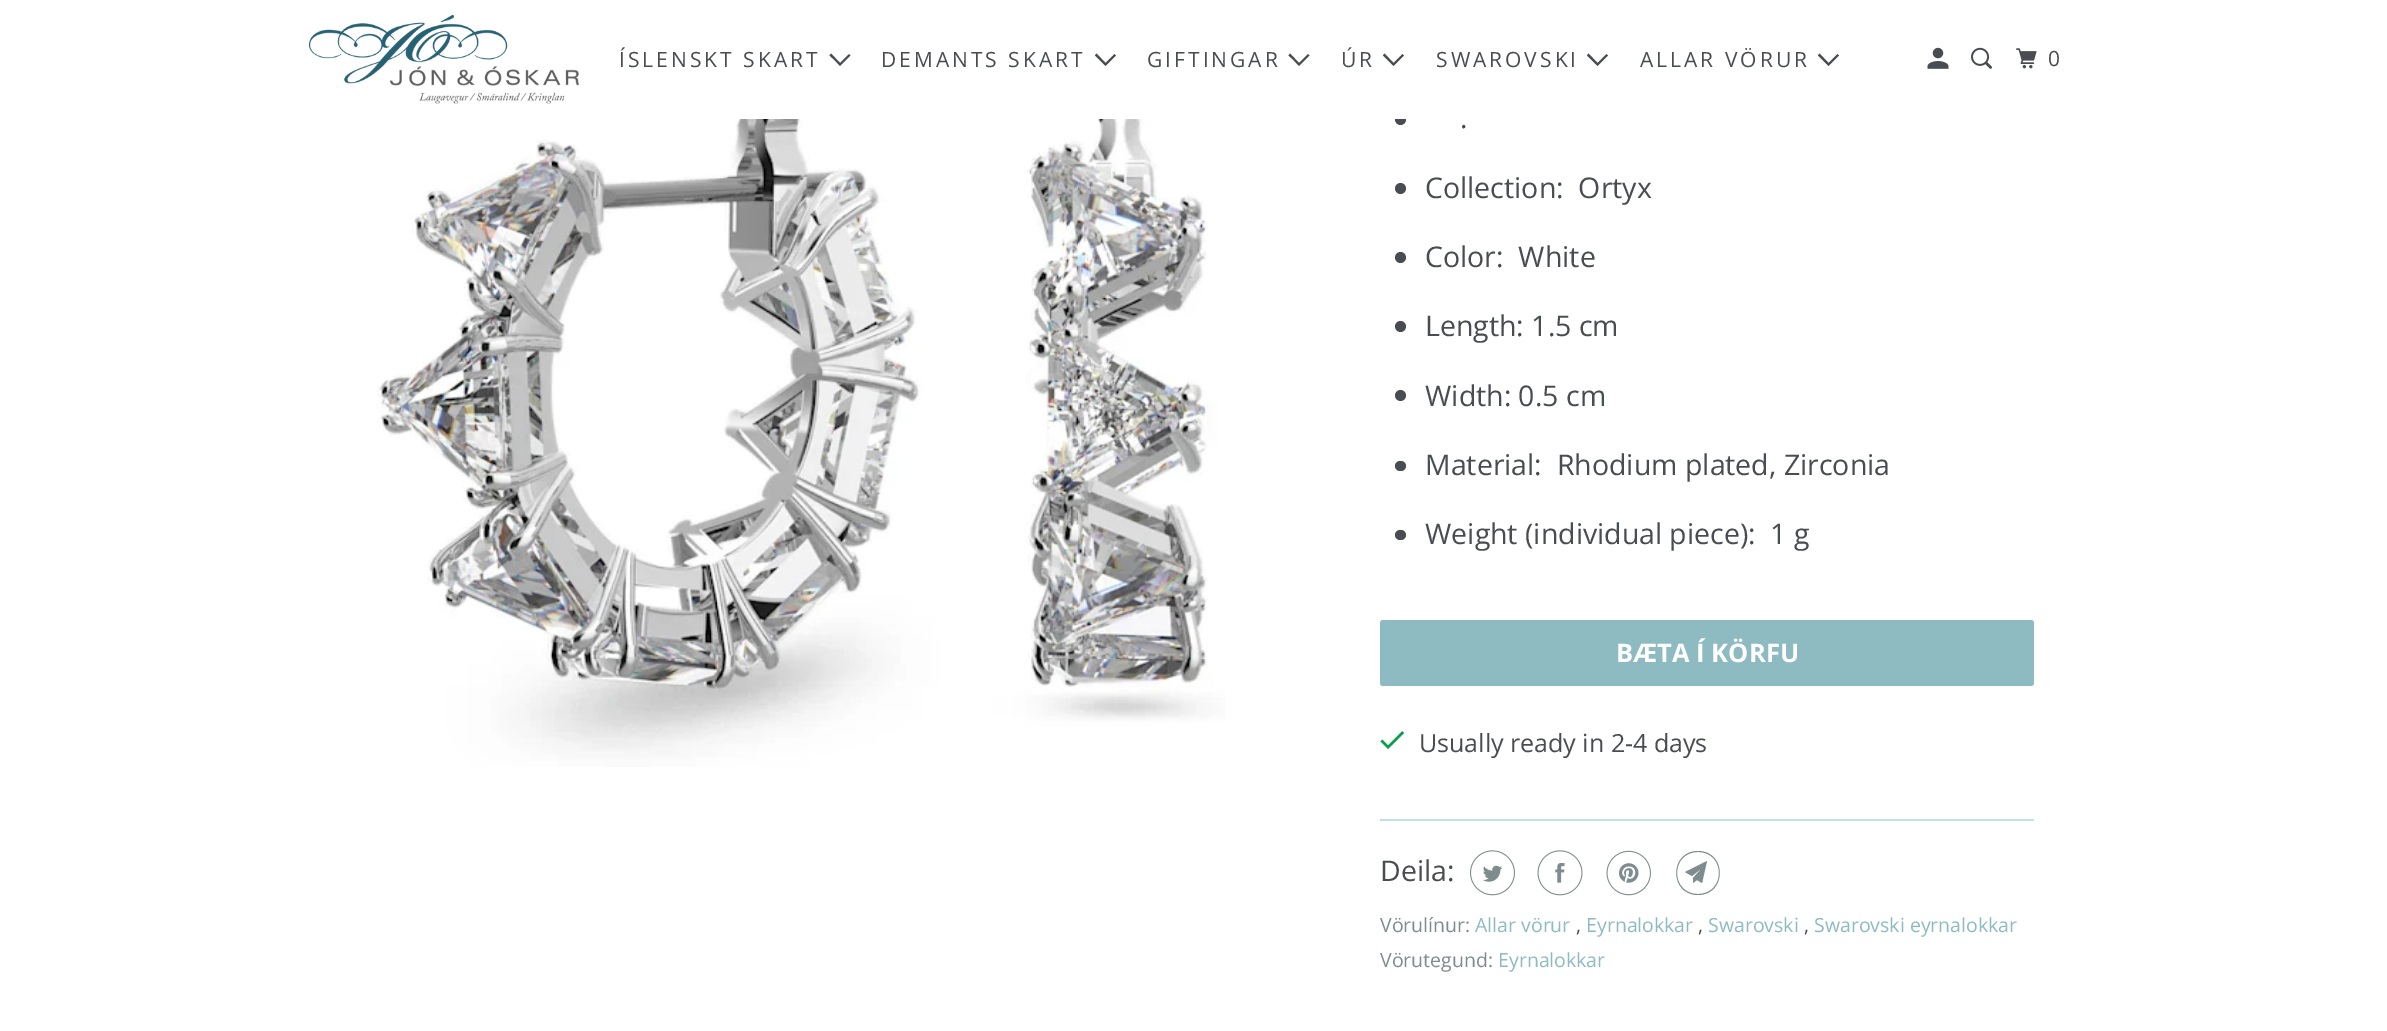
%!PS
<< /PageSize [2387 1031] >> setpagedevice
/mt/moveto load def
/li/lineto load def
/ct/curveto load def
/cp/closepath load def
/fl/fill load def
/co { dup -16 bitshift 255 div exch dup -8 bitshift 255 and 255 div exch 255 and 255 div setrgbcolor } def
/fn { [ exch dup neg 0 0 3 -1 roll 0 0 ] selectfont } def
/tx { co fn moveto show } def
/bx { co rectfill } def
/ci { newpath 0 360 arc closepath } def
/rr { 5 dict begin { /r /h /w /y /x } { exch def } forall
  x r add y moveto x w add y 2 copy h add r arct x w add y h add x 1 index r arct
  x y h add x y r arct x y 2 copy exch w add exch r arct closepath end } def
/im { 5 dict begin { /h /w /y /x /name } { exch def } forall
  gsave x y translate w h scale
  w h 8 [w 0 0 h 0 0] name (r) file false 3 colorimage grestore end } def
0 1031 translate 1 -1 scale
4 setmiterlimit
0 0 2387 1031 16#FFFFFF bx
16#494C50 co
1400.5 119.5 5.5 ci fl
1395 114 11 5 16#FFFFFF bx
(media/1.raw) 309 15 270 89 im
16#494C50 co
835 60.5 mt 829.5 55.5 li 831 53.5 li 840 63 li 849 54 li 850.5 55.5 li 840 66 li cp fl
1100 60.5 mt 1095 55.5 li 1096.5 53.5 li 1105.5 63 li 1114.5 54 li 1116 55.5 li 1105.5 66 li cp fl
1294 60.5 mt 1288.5 55.5 li 1290 53.5 li 1299 63 li 1308 54 li 1309.5 55.5 li 1299 66 li cp fl
1388 60.5 mt 1383 55.5 li 1384.5 53.5 li 1393.5 63 li 1402.5 54 li 1404 55.5 li 1393.5 66 li cp fl
1592 60.5 mt 1587 55.5 li 1588.5 53.5 li 1597.5 63 li 1606.5 54 li 1608 55.5 li 1597.5 66 li cp fl
1823 60.5 mt 1818 55.5 li 1819.5 53.5 li 1828.5 63 li 1837.5 54 li 1839 55.5 li 1828.5 66 li cp fl
(media/2.raw) 1927 47 22 22 im
(media/3.raw) 1971 47 21 22 im
(media/4.raw) 2016 48 21 21 im
(media/5.raw) 377 119 848 648 im
1400.5 188.5 5.5 ci fl
1400.5 257.5 5.5 ci fl
1400.5 326.5 5.5 ci fl
1400.5 395.5 5.5 ci fl
1395 461 11 10 5 rr fl
1395 530 11 10 5 rr fl
16#8EBAC2 co
1380 620 654 66 3 rr fl
(media/6.raw) 1380 731 24 18 im
1380 819 654 2 16#C2E1E6 bx
(media/7.raw) 1470 850 45 46 im
(media/8.raw) 1537 850 46 46 im
(media/9.raw) 1606 850 45 46 im
16#7F8C8D co
1702 883 mt 1697 880 li 1693 883 li 1693 878 li 1702 868 li 1692 876 li 1685 872 li 1707 861 li cp 1698 852 mt 1670 852 1670 894 1698 894 ct 1726 894 1726 852 1698 852 ct cp 1698 895 mt 1669 895 1669 851 1698 851 ct 1727 851 1727 895 1698 895 ct cp fl
/OpenSans-Regular 21 fn
16#494C50 co
619 67 mt 3 0 (ÍSLENSKT SKART) ashow
881 67 mt 3 0 (DEMANTS SKART) ashow
1147 67 mt 3 0 (GIFTINGAR) ashow
1341 67 mt 3 0 (ÚR) ashow
1436 67 mt 3 0 (SWAROVSKI) ashow
1640 67 mt 3 0 (ALLAR VÖRUR) ashow
2048 66 mt 3 0 (0) ashow
(.) 1460 128 /OpenSans-Regular 28.5 16#494C50 tx
(Collection:  Ortyx) 1425 198 /OpenSans-Regular 28.5 16#494C50 tx
(Color:  White) 1425 267 /OpenSans-Regular 28.5 16#494C50 tx
(Length: 1.5 cm) 1425 336 /OpenSans-Regular 28.5 16#494C50 tx
(Width: 0.5 cm) 1425 406 /OpenSans-Regular 28.5 16#494C50 tx
(Material:  Rhodium plated, Zirconia) 1425 475 /OpenSans-Regular 28.5 16#494C50 tx
(Weight \(individual piece\):  1 g) 1425 544 /OpenSans-Regular 28.5 16#494C50 tx
(BÆTA Í KÖRFU) 1616 662 /OpenSans-Bold 25.5 16#FFFFFF tx
(Usually ready in 2-4 days) 1419 752 /OpenSans-Regular 25 16#494C50 tx
(Deila:) 1380 881 /OpenSans-Regular 28.5 16#494C50 tx
(Vörulínur:) 1380 932 /OpenSans-Regular 19.5 16#7F8C8D tx
(Allar vörur) 1475 932 /OpenSans-Regular 19.5 16#8EBAC2 tx
(,) 1576 932 /OpenSans-Regular 19.5 16#494C50 tx
(Eyrnalokkar) 1586 932 /OpenSans-Regular 19.5 16#8EBAC2 tx
(,) 1698 932 /OpenSans-Regular 19.5 16#494C50 tx
(Swarovski) 1708 932 /OpenSans-Regular 19.5 16#8EBAC2 tx
(,) 1804 932 /OpenSans-Regular 19.5 16#494C50 tx
(Swarovski eyrnalokkar) 1814 932 /OpenSans-Regular 19.5 16#8EBAC2 tx
(Vörutegund:) 1380 967 /OpenSans-Regular 19.5 16#7F8C8D tx
(Eyrnalokkar) 1498 967 /OpenSans-Regular 19.5 16#8EBAC2 tx
showpage
